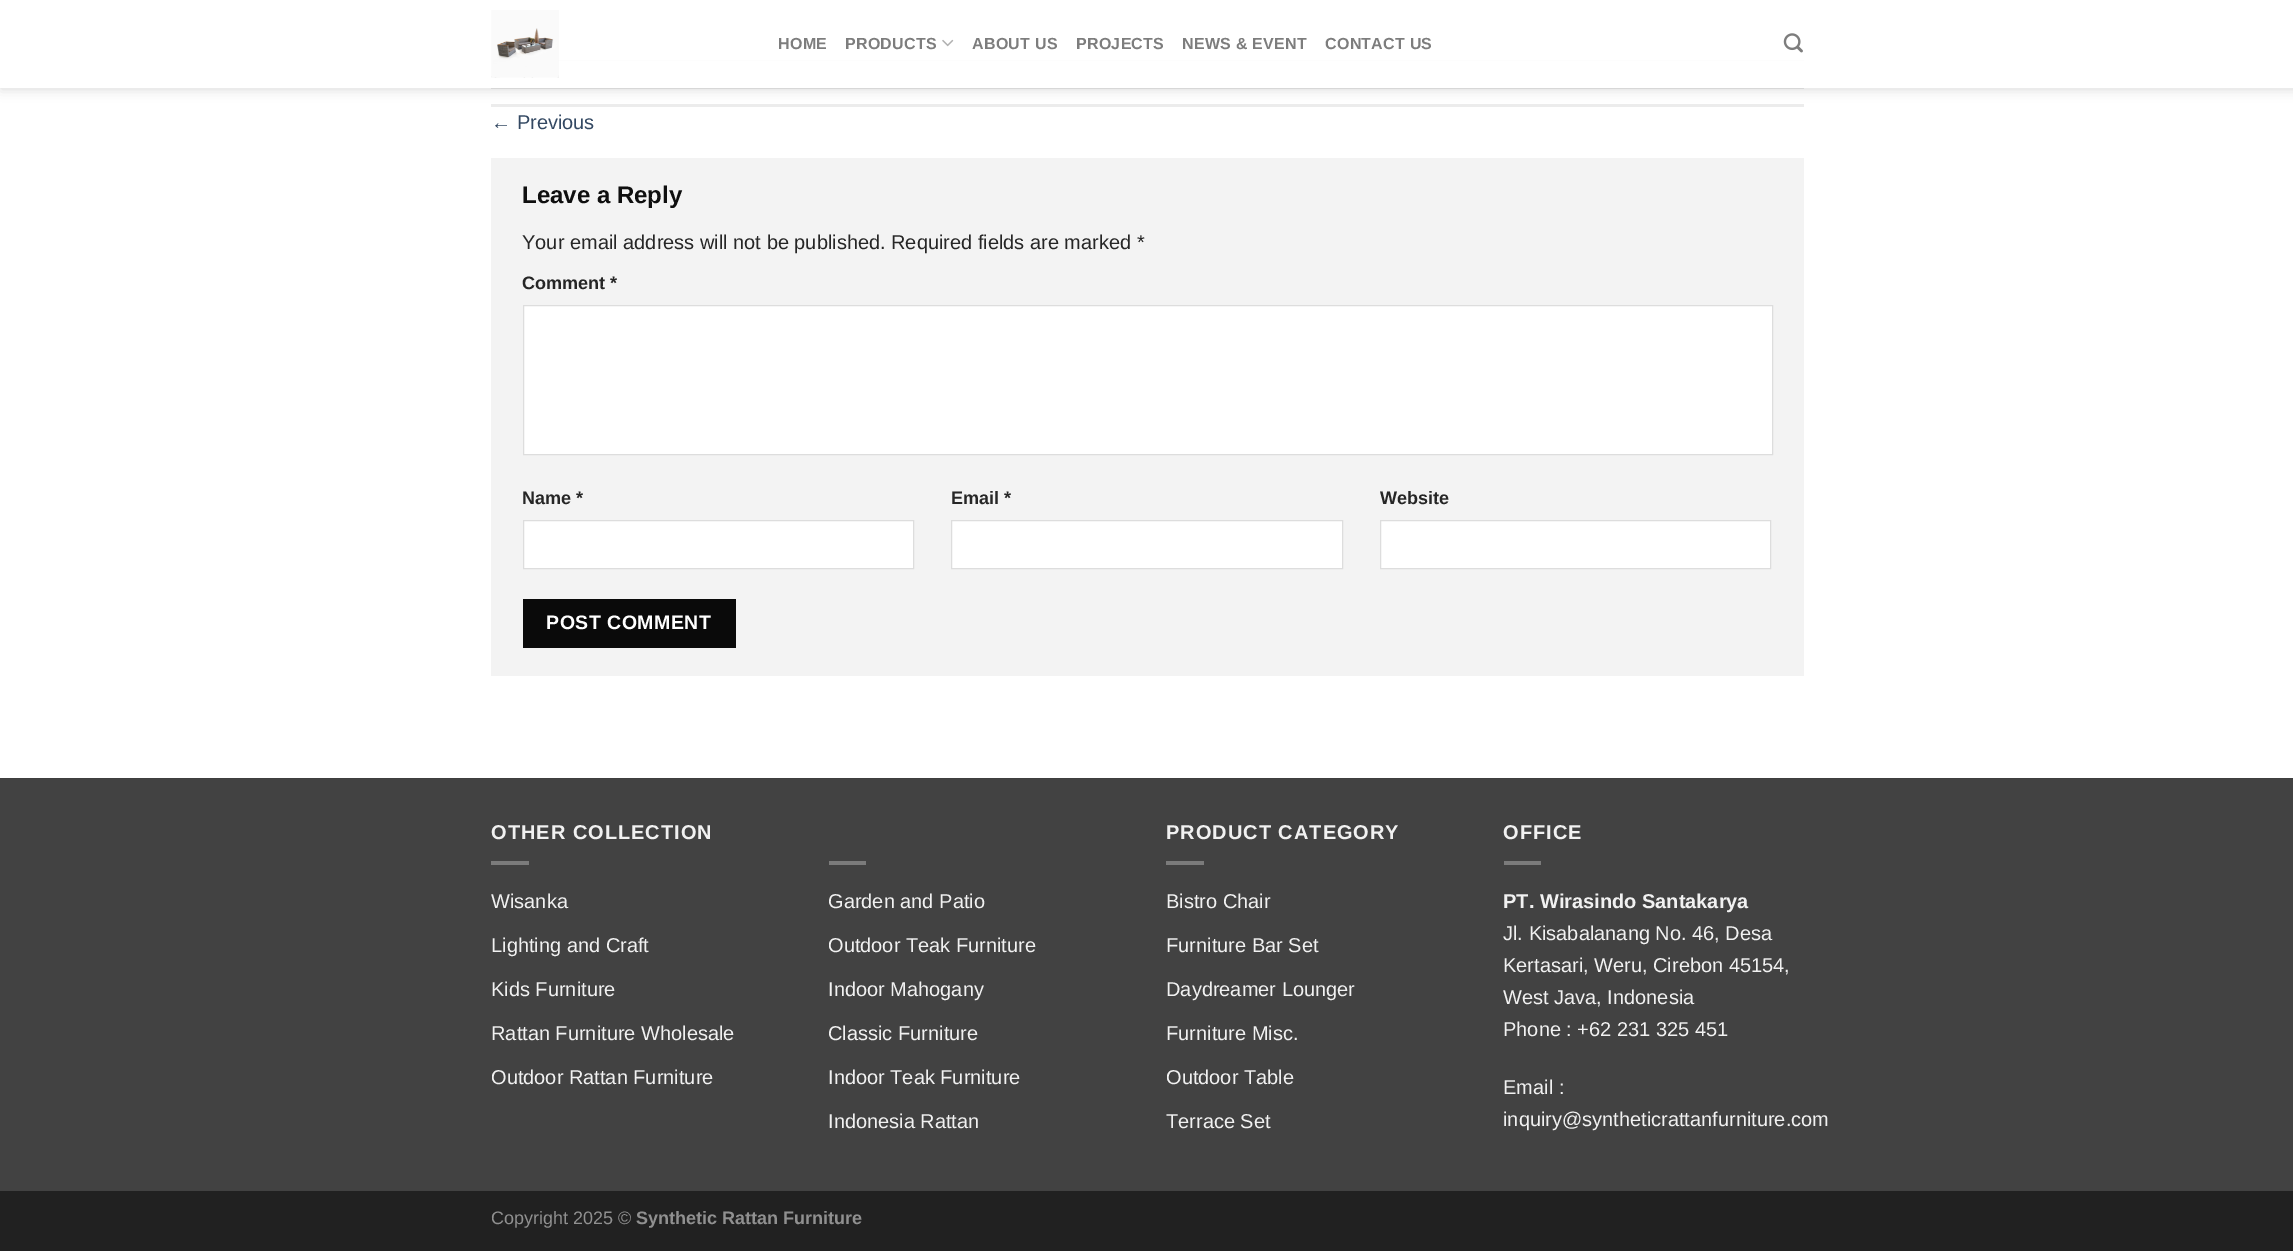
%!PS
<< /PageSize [2293 1251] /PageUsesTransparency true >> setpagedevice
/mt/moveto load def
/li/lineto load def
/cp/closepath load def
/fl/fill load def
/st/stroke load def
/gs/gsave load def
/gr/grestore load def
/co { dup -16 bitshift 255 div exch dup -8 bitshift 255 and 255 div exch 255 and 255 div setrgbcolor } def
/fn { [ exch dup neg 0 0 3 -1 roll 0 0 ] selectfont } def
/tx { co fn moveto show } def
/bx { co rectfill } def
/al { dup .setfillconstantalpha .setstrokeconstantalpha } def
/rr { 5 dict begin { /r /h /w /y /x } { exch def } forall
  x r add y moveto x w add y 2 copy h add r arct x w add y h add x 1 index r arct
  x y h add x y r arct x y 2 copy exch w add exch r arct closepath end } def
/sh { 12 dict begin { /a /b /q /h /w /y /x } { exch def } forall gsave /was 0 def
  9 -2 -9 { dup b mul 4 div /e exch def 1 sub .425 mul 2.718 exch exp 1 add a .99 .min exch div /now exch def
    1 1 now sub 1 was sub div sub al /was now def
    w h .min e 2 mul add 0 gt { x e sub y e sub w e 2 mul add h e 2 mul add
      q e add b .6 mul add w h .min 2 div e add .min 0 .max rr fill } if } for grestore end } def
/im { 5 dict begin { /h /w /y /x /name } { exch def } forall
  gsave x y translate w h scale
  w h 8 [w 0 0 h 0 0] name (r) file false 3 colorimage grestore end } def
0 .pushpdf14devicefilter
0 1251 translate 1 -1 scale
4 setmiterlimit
0 0 2293 1251 16#FFFFFF bx
491 60 1313 1 16#ECECEC bx
491 104 1313 3 16#ECECEC bx
gs
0 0 mt 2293 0 li 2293 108 li 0 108 li cp 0 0 mt 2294 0 li 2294 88 li 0 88 li cp eoclip newpath
16#000000 co
1 1 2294 88 0 6 .15 sh
gr
0.9 al
0 60 2293 28 16#FFFFFF bx
1 al
(media/1.raw) 491 10 68 68 im
(media/2.raw) 942 39 12 8 im
(media/3.raw) 1783 33 20 20 im
0.1 al
491 88 1313 1 16#262626 bx
1 al
491 158 1313 518 16#F3F3F3 bx
16#FFFFFF co
523.5 305.5 mt 1772.5 305.5 li 1772.5 454.5 li 523.5 454.5 li cp gs fl gr
16#DDDDDD co
st
16#FFFFFF co
523.5 520.5 mt 913.5 520.5 li 913.5 568.5 li 523.5 568.5 li cp gs fl gr
16#DDDDDD co
st
16#FFFFFF co
951.5 520.5 mt 1342.5 520.5 li 1342.5 568.5 li 951.5 568.5 li cp gs fl gr
16#DDDDDD co
st
16#FFFFFF co
1380.5 520.5 mt 1770.5 520.5 li 1770.5 568.5 li 1380.5 568.5 li cp gs fl gr
16#DDDDDD co
st
523 599 213 49 16#0A0A0A bx
0 779 2293 412 16#424242 bx
0 778 2293 1 16#3F3F3F bx
491 861 38 4 16#7B7B7B bx
829 861 37 4 16#7B7B7B bx
1166 861 38 4 16#7B7B7B bx
1504 861 37 4 16#7B7B7B bx
0 1191 2293 60 16#212121 bx
/LiberationSans-Bold 16 fn
16#7D7D7D co
778 49 mt .25 0 (HOME) ashow
845 49 mt .25 0 (PRODUCTS) ashow
972 49 mt .25 0 (ABOUT US) ashow
1076 49 mt .25 0 (PROJECTS) ashow
1182 49 mt .25 0 (NEWS & EVENT) ashow
1325 49 mt .25 0 (CONTACT US) ashow
(← Previous) 491 129 /LiberationSans-Regular 20 16#334862 tx
(Leave a Reply) 522 203 /LiberationSans-Bold 24 16#0F0F0F tx
(Your email address will not be published. Required fields are marked *) 522 249 /LiberationSans-Regular 20 16#262626 tx
(Comment *) 522 289 /LiberationSans-Bold 18 16#262626 tx
(Name *) 522 504 /LiberationSans-Bold 18 16#262626 tx
(Email *) 951 504 /LiberationSans-Bold 18 16#262626 tx
(Website) 1380 504 /LiberationSans-Bold 18 16#262626 tx
/LiberationSans-Bold 19.5 fn
16#FFFFFF co
546 629 mt .5 0 (POST COMMENT) ashow
/LiberationSans-Bold 20 fn
16#F1F1F1 co
491 839 mt 1 0 (OTHER COLLECTION) ashow
(Wisanka) 491 908 /LiberationSans-Regular 20 16#F1F1F1 tx
(Lighting and Craft) 491 952 /LiberationSans-Regular 20 16#F1F1F1 tx
(Kids Furniture) 491 996 /LiberationSans-Regular 20 16#F1F1F1 tx
(Rattan Furniture Wholesale) 491 1040 /LiberationSans-Regular 20 16#F1F1F1 tx
(Outdoor Rattan Furniture) 491 1084 /LiberationSans-Regular 20 16#F1F1F1 tx
(Garden and Patio) 828 908 /LiberationSans-Regular 20 16#F1F1F1 tx
(Outdoor Teak Furniture) 828 952 /LiberationSans-Regular 20 16#F1F1F1 tx
(Indoor Mahogany) 828 996 /LiberationSans-Regular 20 16#F1F1F1 tx
(Classic Furniture) 828 1040 /LiberationSans-Regular 20 16#F1F1F1 tx
(Indoor Teak Furniture) 828 1084 /LiberationSans-Regular 20 16#F1F1F1 tx
(Indonesia Rattan) 828 1128 /LiberationSans-Regular 20 16#F1F1F1 tx
/LiberationSans-Bold 20 fn
1166 839 mt 1 0 (PRODUCT CATEGORY) ashow
(Bistro Chair) 1166 908 /LiberationSans-Regular 20 16#F1F1F1 tx
(Furniture Bar Set) 1166 952 /LiberationSans-Regular 20 16#F1F1F1 tx
(Daydreamer Lounger) 1166 996 /LiberationSans-Regular 20 16#F1F1F1 tx
(Furniture Misc.) 1166 1040 /LiberationSans-Regular 20 16#F1F1F1 tx
(Outdoor Table) 1166 1084 /LiberationSans-Regular 20 16#F1F1F1 tx
(Terrace Set) 1166 1128 /LiberationSans-Regular 20 16#F1F1F1 tx
/LiberationSans-Bold 20 fn
1503 839 mt 1 0 (OFFICE) ashow
(PT. Wirasindo Santakarya) 1503 908 /LiberationSans-Bold 20 16#F1F1F1 tx
(Jl. Kisabalanang No. 46, Desa) 1503 940 /LiberationSans-Regular 20 16#F1F1F1 tx
(Kertasari, Weru, Cirebon 45154,) 1503 972 /LiberationSans-Regular 20 16#F1F1F1 tx
(West Java, Indonesia) 1503 1004 /LiberationSans-Regular 20 16#F1F1F1 tx
(Phone : +62 231 325 451) 1503 1036 /LiberationSans-Regular 20 16#F1F1F1 tx
(Email :) 1503 1094 /LiberationSans-Regular 20 16#F1F1F1 tx
(inquiry@syntheticrattanfurniture.com) 1503 1126 /LiberationSans-Regular 20 16#F1F1F1 tx
(Copyright 2025 ©) 491 1224 /LiberationSans-Regular 18 16#909090 tx
(Synthetic Rattan Furniture) 636 1224 /LiberationSans-Bold 18 16#909090 tx
.poppdf14devicefilter showpage
